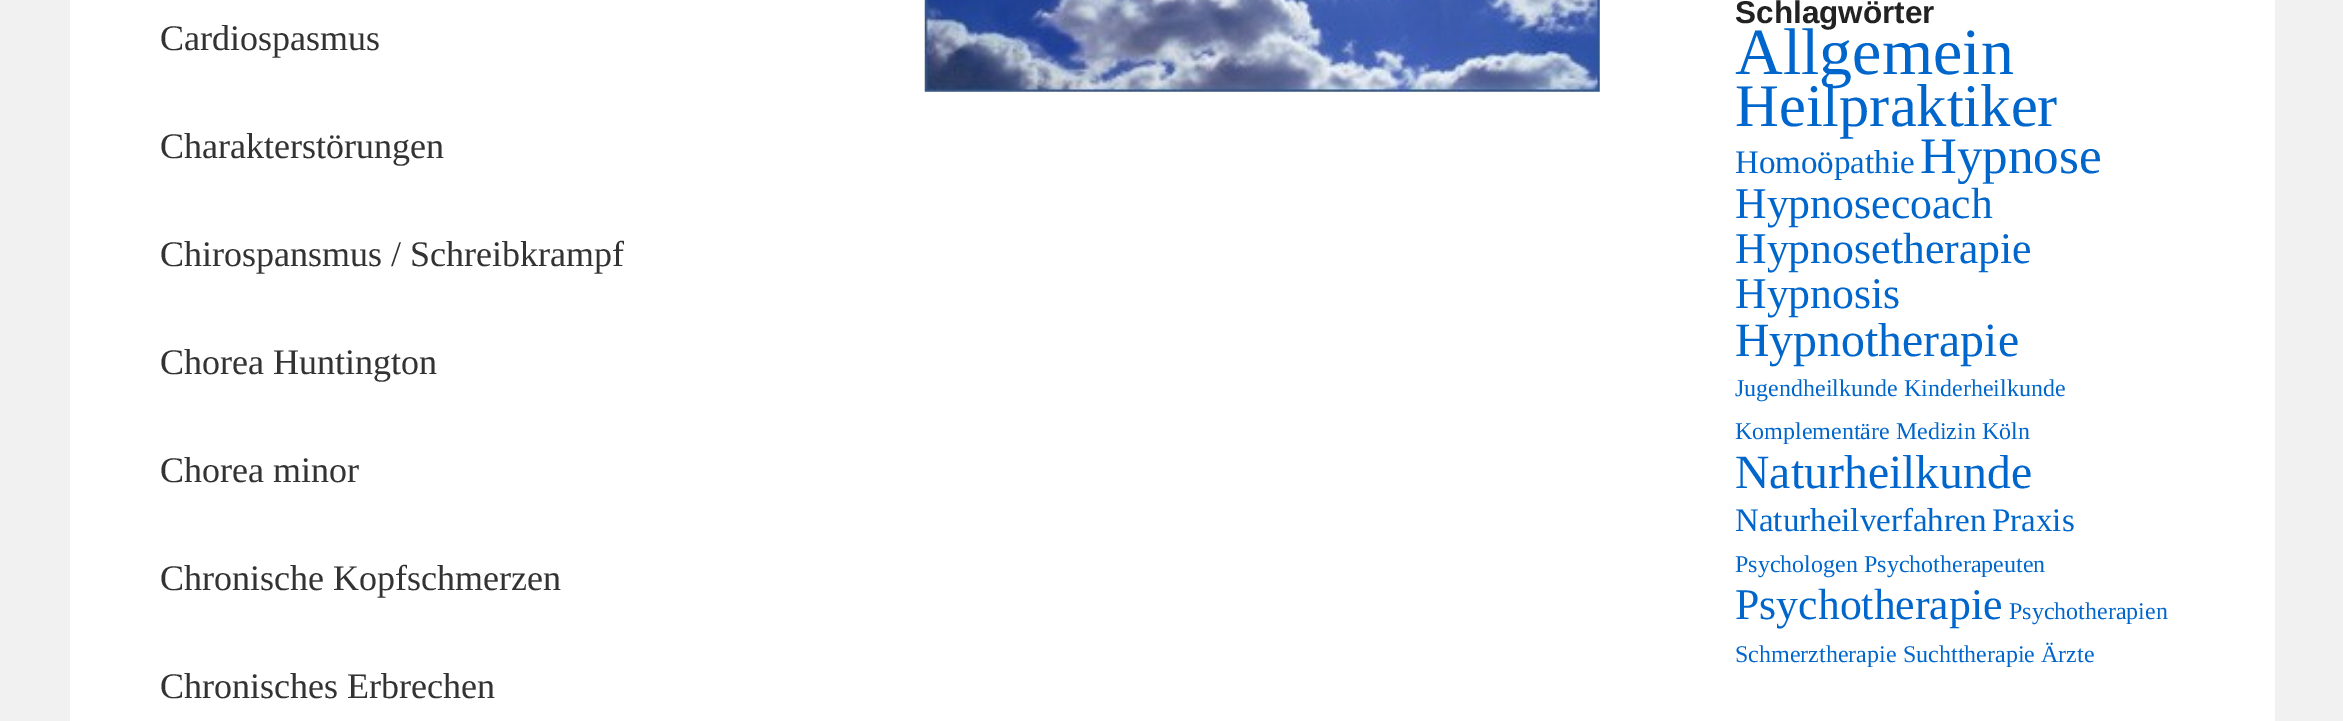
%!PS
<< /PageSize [2343 721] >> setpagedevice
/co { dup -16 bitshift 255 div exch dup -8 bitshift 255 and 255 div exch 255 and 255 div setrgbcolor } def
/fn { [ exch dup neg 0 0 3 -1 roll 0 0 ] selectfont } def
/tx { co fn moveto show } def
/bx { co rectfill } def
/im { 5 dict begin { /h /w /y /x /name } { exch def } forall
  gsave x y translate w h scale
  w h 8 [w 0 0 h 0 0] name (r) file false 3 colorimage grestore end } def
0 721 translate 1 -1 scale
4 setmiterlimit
0 0 2343 721 16#F1F1F1 bx
70 0 2205 721 16#FFFFFF bx
(media/1.raw) 924 0 676 92 im
(Cardiospasmus) 160 50 /LiberationSerif-Regular 36 16#333333 tx
(Charakterstörungen) 160 158 /LiberationSerif-Regular 36 16#333333 tx
(Chirospansmus / Schreibkrampf) 160 266 /LiberationSerif-Regular 36 16#333333 tx
(Chorea Huntington) 160 374 /LiberationSerif-Regular 36 16#333333 tx
(Chorea minor) 160 482 /LiberationSerif-Regular 36 16#333333 tx
(Chronische Kopfschmerzen) 160 590 /LiberationSerif-Regular 36 16#333333 tx
(Chronisches Erbrechen) 160 698 /LiberationSerif-Regular 36 16#333333 tx
(Schlagwörter) 1735 23 /LiberationSans-Bold 31.5 16#222222 tx
(Allgemein) 1735 74 /LiberationSerif-Regular 66 16#0066CC tx
(Heilpraktiker) 1735 126 /LiberationSerif-Regular 60.5 16#0066CC tx
(Homoöpathie) 1735 173 /LiberationSerif-Regular 33 16#0066CC tx
(Hypnose) 1920 173 /LiberationSerif-Regular 51 16#0066CC tx
(Hypnosecoach) 1735 218 /LiberationSerif-Regular 43.75 16#0066CC tx
(Hypnosetherapie) 1735 263 /LiberationSerif-Regular 43.75 16#0066CC tx
(Hypnosis) 1735 308 /LiberationSerif-Regular 43.75 16#0066CC tx
(Hypnotherapie) 1735 356 /LiberationSerif-Regular 47.75 16#0066CC tx
(Jugendheilkunde) 1735 396 /LiberationSerif-Regular 24 16#0066CC tx
(Kinderheilkunde) 1904 396 /LiberationSerif-Regular 24 16#0066CC tx
(Komplementäre Medizin) 1735 439 /LiberationSerif-Regular 24 16#0066CC tx
(Köln) 1982 439 /LiberationSerif-Regular 24 16#0066CC tx
(Naturheilkunde) 1735 488 /LiberationSerif-Regular 47.75 16#0066CC tx
(Naturheilverfahren) 1735 531 /LiberationSerif-Regular 33 16#0066CC tx
(Praxis) 1992 531 /LiberationSerif-Regular 33 16#0066CC tx
(Psychologen) 1735 572 /LiberationSerif-Regular 24 16#0066CC tx
(Psychotherapeuten) 1864 572 /LiberationSerif-Regular 24 16#0066CC tx
(Psychotherapie) 1735 619 /LiberationSerif-Regular 43.75 16#0066CC tx
(Psychotherapien) 2009 619 /LiberationSerif-Regular 24 16#0066CC tx
(Schmerztherapie) 1735 662 /LiberationSerif-Regular 24 16#0066CC tx
(Suchttherapie) 1903 662 /LiberationSerif-Regular 24 16#0066CC tx
(Ärzte) 2041 662 /LiberationSerif-Regular 24 16#0066CC tx
showpage
